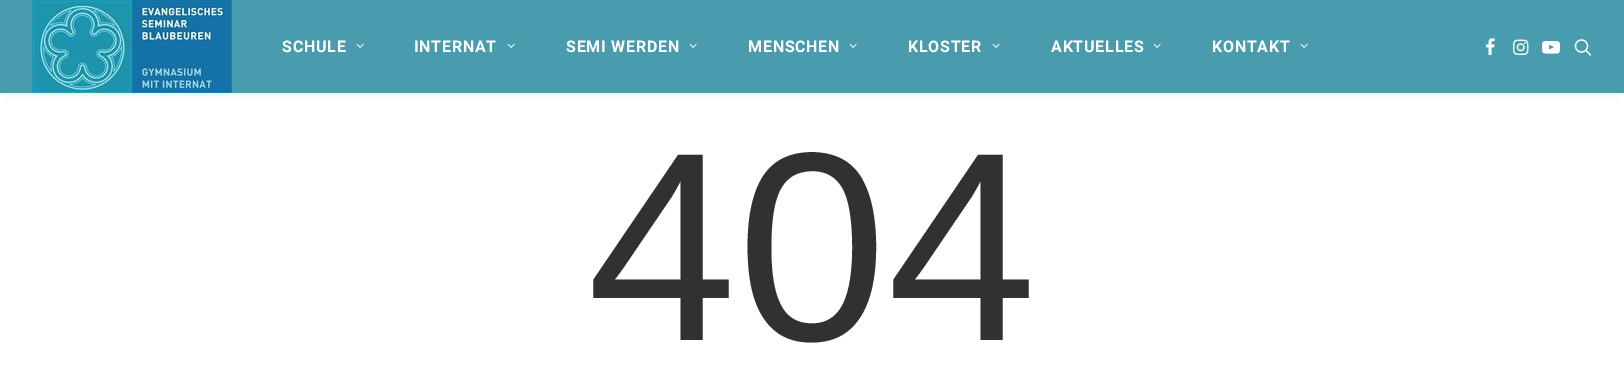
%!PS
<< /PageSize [1624 378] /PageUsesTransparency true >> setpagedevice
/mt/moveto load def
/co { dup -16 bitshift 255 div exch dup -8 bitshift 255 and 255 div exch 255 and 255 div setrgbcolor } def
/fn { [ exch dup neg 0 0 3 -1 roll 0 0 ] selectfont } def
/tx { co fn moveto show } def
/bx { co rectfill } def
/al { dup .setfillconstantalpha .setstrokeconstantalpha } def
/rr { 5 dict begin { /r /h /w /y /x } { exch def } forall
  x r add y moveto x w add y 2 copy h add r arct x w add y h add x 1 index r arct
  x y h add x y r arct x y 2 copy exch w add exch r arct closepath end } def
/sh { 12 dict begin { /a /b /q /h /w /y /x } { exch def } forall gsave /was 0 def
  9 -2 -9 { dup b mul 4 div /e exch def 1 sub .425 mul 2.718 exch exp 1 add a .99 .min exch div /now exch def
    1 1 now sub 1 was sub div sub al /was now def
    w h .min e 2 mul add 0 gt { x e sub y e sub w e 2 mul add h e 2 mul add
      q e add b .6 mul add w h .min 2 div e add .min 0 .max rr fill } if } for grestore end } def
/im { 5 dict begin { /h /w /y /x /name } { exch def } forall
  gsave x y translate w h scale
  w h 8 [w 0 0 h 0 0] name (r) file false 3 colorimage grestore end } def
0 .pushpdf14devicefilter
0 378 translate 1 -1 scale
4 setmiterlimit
0 0 1624 378 16#FFFFFF bx
16#000000 co
6 14 1612 73 0 5 .6 sh
0 0 1624 93 16#499CAE bx
(media/1.raw) 32 0 200 93 im
(media/2.raw) 356 43 8 5 im
(media/2.raw) 507 43 8 5 im
(media/2.raw) 689 43 8 5 im
(media/2.raw) 849 43 8 5 im
(media/2.raw) 992 43 8 5 im
(media/2.raw) 1153 43 8 5 im
(media/2.raw) 1300 43 8 5 im
(media/3.raw) 1485 38 10 17 im
(media/4.raw) 1513 39 16 16 im
(media/5.raw) 1542 41 18 13 im
(media/6.raw) 1574 39 18 17 im
/Roboto-Bold 16 fn
16#FFFFFF co
282 52 mt .75 0 (SCHULE) ashow
414 52 mt .75 0 (INTERNAT) ashow
566 52 mt .75 0 (SEMI WERDEN) ashow
748 52 mt .75 0 (MENSCHEN) ashow
908 52 mt .75 0 (KLOSTER) ashow
1051 52 mt .75 0 (AKTUELLES) ashow
1212 52 mt .75 0 (KONTAKT) ashow
(404) 587 340 /LiberationSans-Regular 270 16#303133 tx
.poppdf14devicefilter showpage
